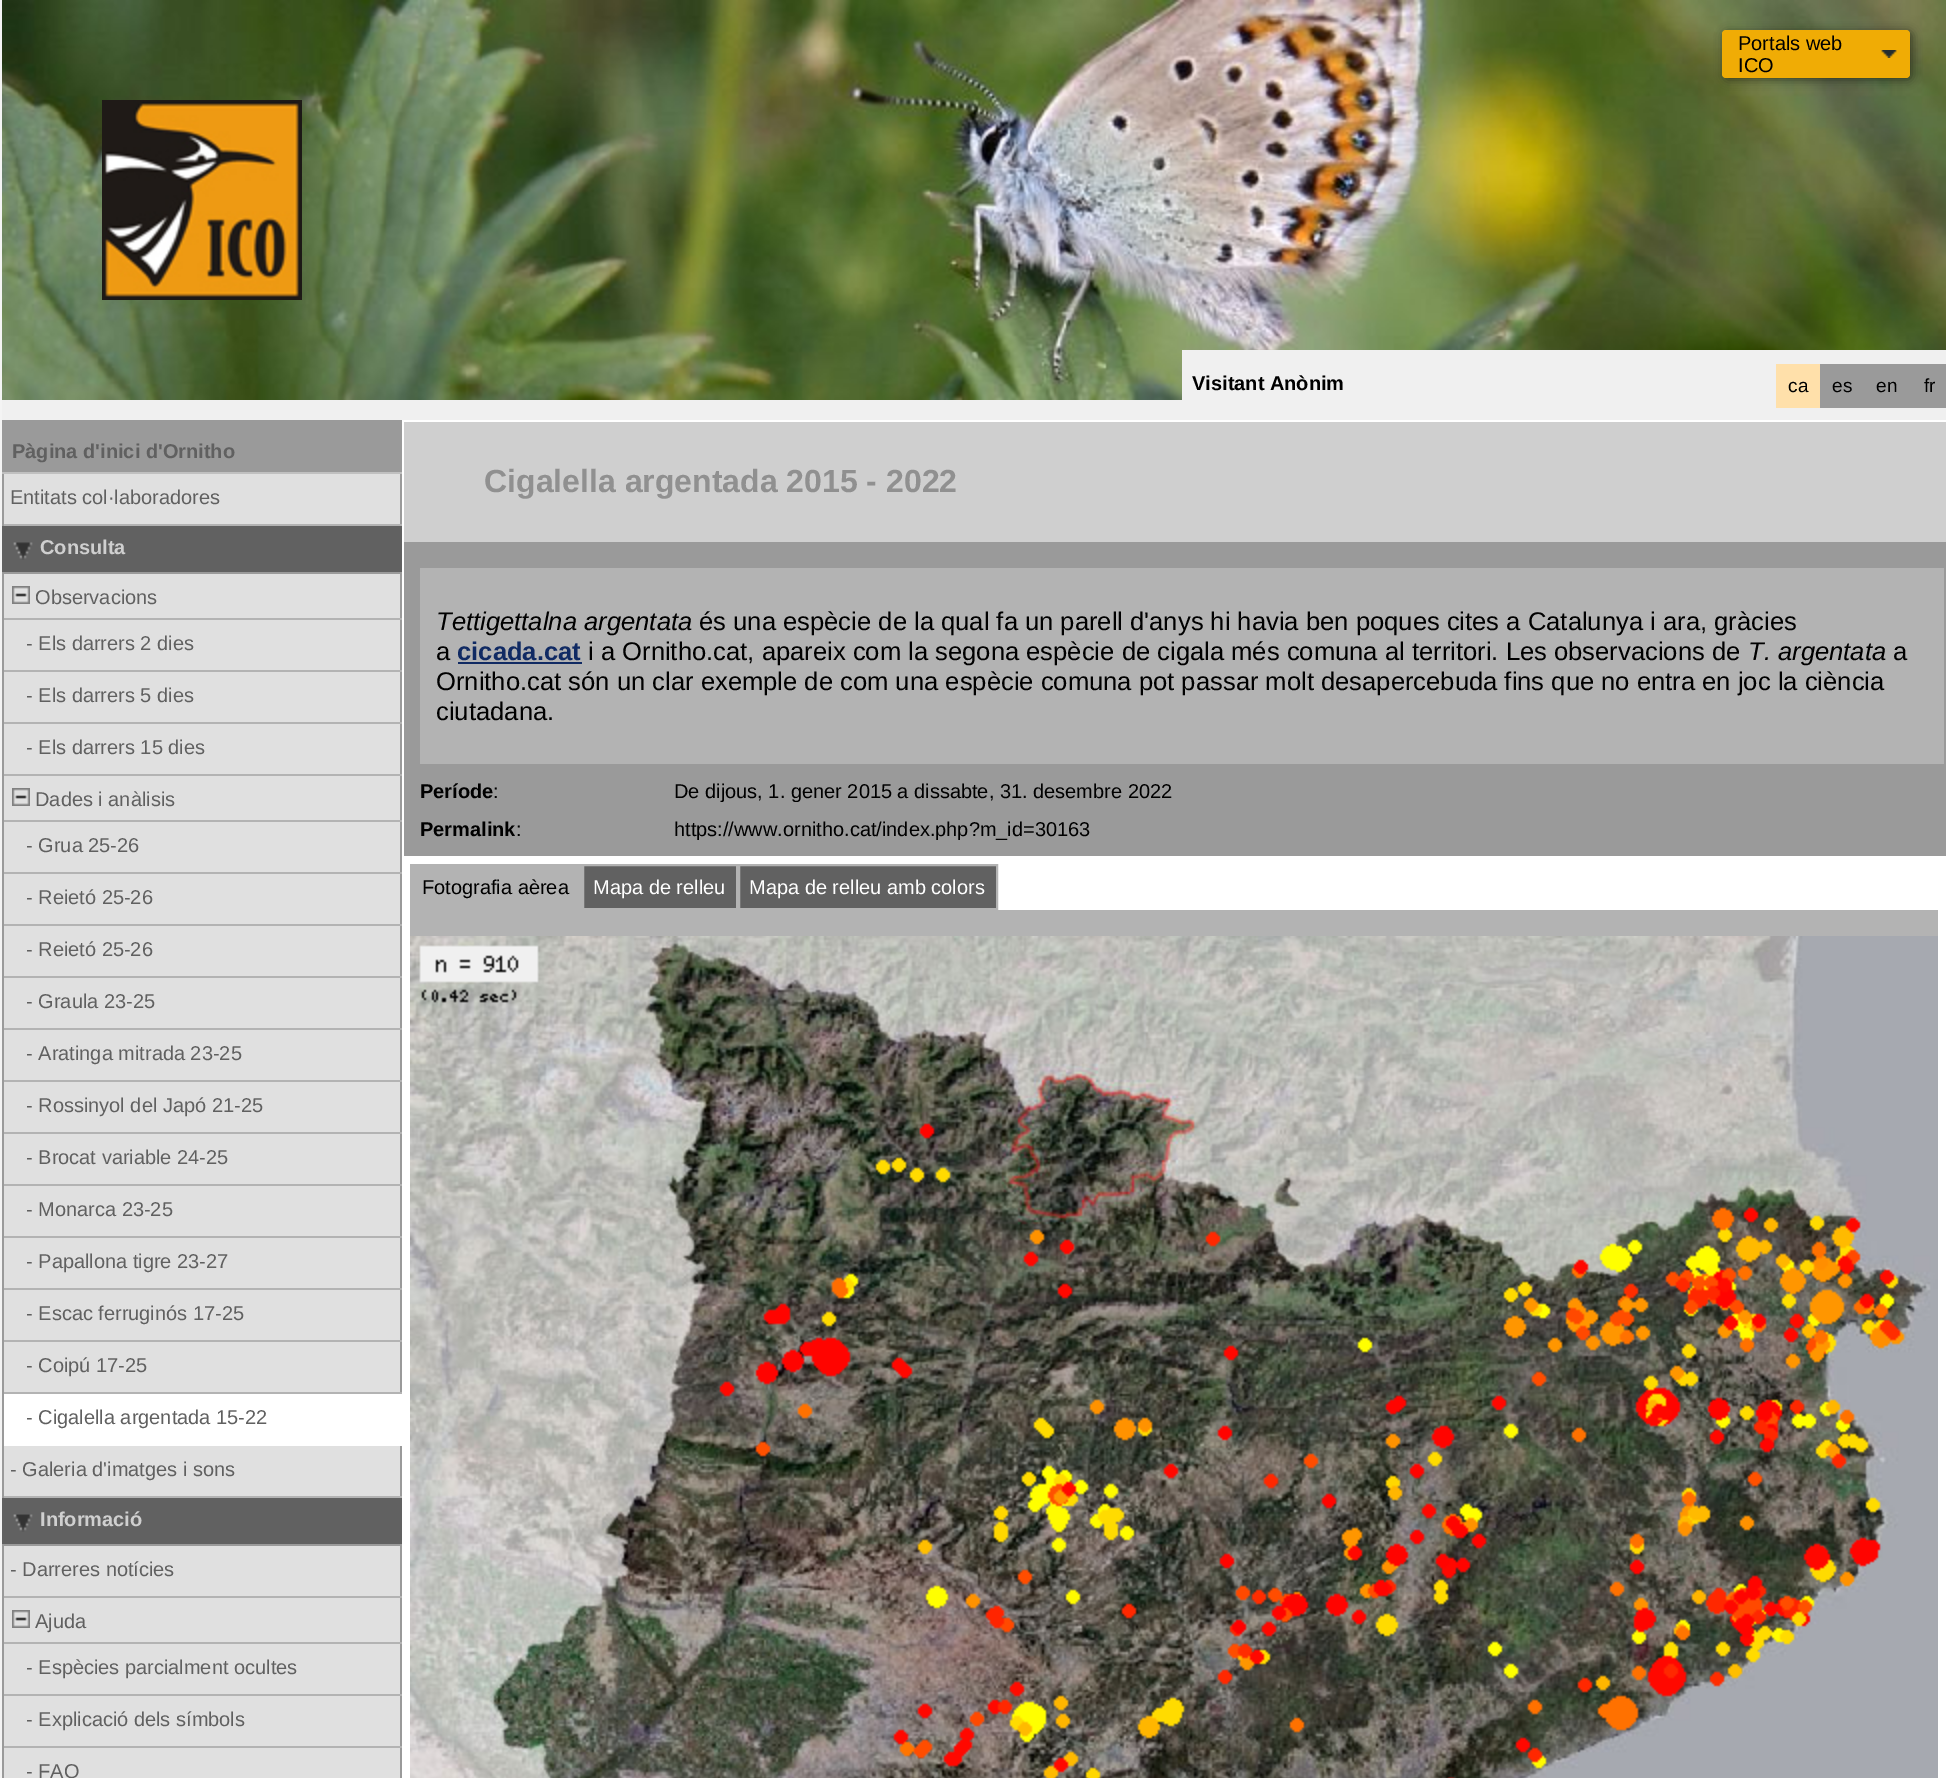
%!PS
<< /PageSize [1946 1778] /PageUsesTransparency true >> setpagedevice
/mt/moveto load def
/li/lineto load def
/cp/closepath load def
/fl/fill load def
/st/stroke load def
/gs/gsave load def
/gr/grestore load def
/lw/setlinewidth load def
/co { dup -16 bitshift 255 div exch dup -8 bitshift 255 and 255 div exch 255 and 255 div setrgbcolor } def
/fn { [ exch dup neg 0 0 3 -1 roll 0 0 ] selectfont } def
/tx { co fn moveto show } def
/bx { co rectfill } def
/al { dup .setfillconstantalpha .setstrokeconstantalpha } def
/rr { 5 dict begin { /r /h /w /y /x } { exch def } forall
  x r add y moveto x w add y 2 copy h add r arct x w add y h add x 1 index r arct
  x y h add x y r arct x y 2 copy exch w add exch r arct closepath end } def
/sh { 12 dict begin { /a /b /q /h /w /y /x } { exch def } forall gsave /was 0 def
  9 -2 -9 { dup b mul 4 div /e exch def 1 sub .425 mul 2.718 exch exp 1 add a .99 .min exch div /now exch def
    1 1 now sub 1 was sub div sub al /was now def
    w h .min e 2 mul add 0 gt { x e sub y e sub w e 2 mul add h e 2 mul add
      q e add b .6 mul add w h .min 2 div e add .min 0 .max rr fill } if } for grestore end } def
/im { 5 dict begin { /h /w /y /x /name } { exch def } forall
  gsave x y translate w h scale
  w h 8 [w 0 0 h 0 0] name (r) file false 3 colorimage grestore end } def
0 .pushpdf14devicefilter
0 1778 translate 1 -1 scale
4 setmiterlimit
0 0 1946 1778 16#F4F4F4 bx
(media/2.raw) 2 0 1944 400 im
16#000000 co
1724 32 188 48 4 5 .5 sh
16#F0AC05 co
1722 30 188 48 4 rr fl
(media/1.raw) 1881 50 16 8 im
(media/3.raw) 102 100 200 200 im
1182 350 764 50 16#F0F0F0 bx
2 400 1944 20 16#F0F0F0 bx
1776 364 44 44 16#FFE0AA bx
1820 364 126 44 16#9A9A9A bx
402 420 1544 1358 16#FFFFFF bx
2 420 400 52 16#9A9A9A bx
2 472 400 2 16#C0C0C0 bx
4 474 396 50 16#E0E0E0 bx
400 474 2 52 16#9A9A9A bx
2 524 400 2 16#B3B3B3 bx
2 474 2 52 16#9A9A9A bx
2 526 400 46 16#616161 bx
2 572 400 2 16#9A9A9A bx
(media/4.raw) 13 542 20 18 im
4 574 396 44 16#E0E0E0 bx
400 574 2 820 16#9A9A9A bx
2 618 400 2 16#B3B3B3 bx
2 574 2 46 16#9A9A9A bx
(media/5.raw) 12 586 18 18 im
4 620 396 50 16#E0E0E0 bx
2 670 400 2 16#B3B3B3 bx
2 620 2 52 16#9A9A9A bx
4 672 396 50 16#E0E0E0 bx
2 722 400 2 16#B3B3B3 bx
2 672 2 52 16#9A9A9A bx
4 724 396 50 16#E0E0E0 bx
2 774 400 2 16#B3B3B3 bx
2 724 2 52 16#9A9A9A bx
4 776 396 44 16#E0E0E0 bx
2 820 400 2 16#B3B3B3 bx
2 776 2 46 16#9A9A9A bx
(media/5.raw) 12 788 18 18 im
4 822 396 50 16#E0E0E0 bx
2 872 400 2 16#B3B3B3 bx
2 822 2 52 16#9A9A9A bx
4 874 396 50 16#E0E0E0 bx
2 924 400 2 16#B3B3B3 bx
2 874 2 52 16#9A9A9A bx
4 926 396 50 16#E0E0E0 bx
2 976 400 2 16#B3B3B3 bx
2 926 2 52 16#9A9A9A bx
4 978 396 50 16#E0E0E0 bx
2 1028 400 2 16#B3B3B3 bx
2 978 2 52 16#9A9A9A bx
4 1030 396 50 16#E0E0E0 bx
2 1080 400 2 16#B3B3B3 bx
2 1030 2 52 16#9A9A9A bx
4 1082 396 50 16#E0E0E0 bx
2 1132 400 2 16#B3B3B3 bx
2 1082 2 52 16#9A9A9A bx
4 1134 396 50 16#E0E0E0 bx
2 1184 400 2 16#B3B3B3 bx
2 1134 2 52 16#9A9A9A bx
4 1186 396 50 16#E0E0E0 bx
2 1236 400 2 16#B3B3B3 bx
2 1186 2 52 16#9A9A9A bx
4 1238 396 50 16#E0E0E0 bx
2 1288 400 2 16#B3B3B3 bx
2 1238 2 52 16#9A9A9A bx
4 1290 396 50 16#E0E0E0 bx
2 1340 400 2 16#B3B3B3 bx
2 1290 2 52 16#9A9A9A bx
4 1342 396 50 16#E0E0E0 bx
2 1392 400 2 16#B3B3B3 bx
2 1342 2 104 16#9A9A9A bx
4 1394 398 52 16#FFFFFF bx
4 1446 396 50 16#E0E0E0 bx
400 1446 2 52 16#9A9A9A bx
2 1496 400 2 16#B3B3B3 bx
2 1446 2 52 16#9A9A9A bx
2 1498 400 46 16#616161 bx
2 1544 400 2 16#9A9A9A bx
(media/6.raw) 13 1514 20 18 im
4 1546 396 50 16#E0E0E0 bx
400 1546 2 232 16#9A9A9A bx
2 1596 400 2 16#B3B3B3 bx
2 1546 2 52 16#9A9A9A bx
4 1598 396 44 16#E0E0E0 bx
2 1642 400 2 16#B3B3B3 bx
2 1598 2 46 16#9A9A9A bx
(media/5.raw) 12 1610 18 18 im
4 1644 396 50 16#E0E0E0 bx
2 1694 400 2 16#B3B3B3 bx
2 1644 2 52 16#9A9A9A bx
4 1696 396 50 16#E0E0E0 bx
2 1746 400 2 16#B3B3B3 bx
2 1696 2 82 16#9A9A9A bx
4 1748 396 30 16#E0E0E0 bx
404 422 1542 120 16#CFCFCF bx
404 542 1542 314 16#9A9A9A bx
420 568 1524 196 16#B3B3B3 bx
458 662 124 2 16#102A63 bx
410 864 172 46 16#B3B3B3 bx
16#616161 co
583 865 mt 737 865 li 737 909 li 583 909 li cp gs fl gr
16#B3B3B3 co
2 lw
st
16#616161 co
739 865 mt 997 865 li 997 909 li 739 909 li cp gs fl gr
16#B3B3B3 co
st
410 910 1528 26 16#B3B3B3 bx
(media/7.raw) 410 936 1528 842 im
(media/8.raw) 419 945 1486 833 im
(Portals web) 1738 50 /LiberationSans-Regular 20 16#000000 tx
(ICO) 1738 72 /LiberationSans-Regular 20 16#000000 tx
(Visitant Anònim) 1192 390 /LiberationSans-Bold 20 16#000000 tx
(ca) 1788 392 /LiberationSans-Regular 19 16#000000 tx
(es) 1832 392 /LiberationSans-Regular 19 16#000000 tx
(en) 1876 392 /LiberationSans-Regular 19 16#000000 tx
(fr) 1924 392 /LiberationSans-Regular 19 16#000000 tx
(Pàgina d'inici d'Ornitho) 12 458 /LiberationSans-Bold 20 16#606060 tx
(Entitats col·laboradores) 10 504 /LiberationSans-Regular 20 16#606060 tx
(Consulta) 40 554 /LiberationSans-Bold 20 16#CFCFCF tx
(Observacions) 35 604 /LiberationSans-Regular 20 16#606060 tx
(- Els darrers 2 dies) 26 650 /LiberationSans-Regular 20 16#606060 tx
(- Els darrers 5 dies) 26 702 /LiberationSans-Regular 20 16#606060 tx
(- Els darrers 15 dies) 26 754 /LiberationSans-Regular 20 16#606060 tx
(Dades i anàlisis) 35 806 /LiberationSans-Regular 20 16#606060 tx
(- Grua 25-26) 26 852 /LiberationSans-Regular 20 16#606060 tx
(- Reietó 25-26) 26 904 /LiberationSans-Regular 20 16#606060 tx
(- Reietó 25-26) 26 956 /LiberationSans-Regular 20 16#606060 tx
(- Graula 23-25) 26 1008 /LiberationSans-Regular 20 16#606060 tx
(- Aratinga mitrada 23-25) 26 1060 /LiberationSans-Regular 20 16#606060 tx
(- Rossinyol del Japó 21-25) 26 1112 /LiberationSans-Regular 20 16#606060 tx
(- Brocat variable 24-25) 26 1164 /LiberationSans-Regular 20 16#606060 tx
(- Monarca 23-25) 26 1216 /LiberationSans-Regular 20 16#606060 tx
(- Papallona tigre 23-27) 26 1268 /LiberationSans-Regular 20 16#606060 tx
(- Escac ferruginós 17-25) 26 1320 /LiberationSans-Regular 20 16#606060 tx
(- Coipú 17-25) 26 1372 /LiberationSans-Regular 20 16#606060 tx
(- Cigalella argentada 15-22) 26 1424 /LiberationSans-Regular 20 16#606060 tx
(- Galeria d'imatges i sons) 10 1476 /LiberationSans-Regular 20 16#606060 tx
(Informació) 40 1526 /LiberationSans-Bold 20 16#CFCFCF tx
(- Darreres notícies) 10 1576 /LiberationSans-Regular 20 16#606060 tx
(Ajuda) 35 1628 /LiberationSans-Regular 20 16#606060 tx
(- Espècies parcialment ocultes) 26 1674 /LiberationSans-Regular 20 16#606060 tx
(- Explicació dels símbols) 26 1726 /LiberationSans-Regular 20 16#606060 tx
(- FAQ) 26 1778 /LiberationSans-Regular 20 16#606060 tx
(Cigalella argentada 2015 - 2022) 484 492 /LiberationSans-Bold 32 16#909090 tx
(Tettigettalna argentata) 436 630 /LiberationSans-Italic 25.6 16#000000 tx
(és una espècie de la qual fa un parell d'anys hi havia ben poques cites a Catalunya i ara, gràcies) 699 630 /LiberationSans-Regular 25.6 16#000000 tx
(a) 436 660 /LiberationSans-Regular 25.6 16#000000 tx
(cicada.cat) 457 660 /LiberationSans-Bold 25.6 16#102A63 tx
(i a Ornitho.cat, apareix com la segona espècie de cigala més comuna al territori. Les observacions de) 588 660 /LiberationSans-Regular 25.6 16#000000 tx
(T. argentata) 1748 660 /LiberationSans-Italic 25.6 16#000000 tx
(a) 1893 660 /LiberationSans-Regular 25.6 16#000000 tx
(Ornitho.cat són un clar exemple de com una espècie comuna pot passar molt desapercebuda fins que no entra en joc la ciència) 436 690 /LiberationSans-Regular 25.6 16#000000 tx
(ciutadana.) 436 720 /LiberationSans-Regular 25.6 16#000000 tx
(Període) 420 798 /LiberationSans-Bold 20 16#000000 tx
(:) 493 798 /LiberationSans-Regular 20 16#000000 tx
(De dijous, 1. gener 2015 a dissabte, 31. desembre 2022) 674 798 /LiberationSans-Regular 20 16#000000 tx
(Permalink) 420 836 /LiberationSans-Bold 20 16#000000 tx
(:) 516 836 /LiberationSans-Regular 20 16#000000 tx
720 802 78 1 16#9A9A9A bx
gs
674 818 1270 22 rectclip
(https://www.ornitho.cat/index.php?m_id=30163) 674 836 /LiberationSans-Regular 20 16#000000 tx
gr
(Fotografia aèrea) 422 894 /LiberationSans-Regular 20 16#000000 tx
(Mapa de relleu) 593 894 /LiberationSans-Regular 20 16#FFFFFF tx
(Mapa de relleu amb colors) 749 894 /LiberationSans-Regular 20 16#FFFFFF tx
.poppdf14devicefilter showpage
